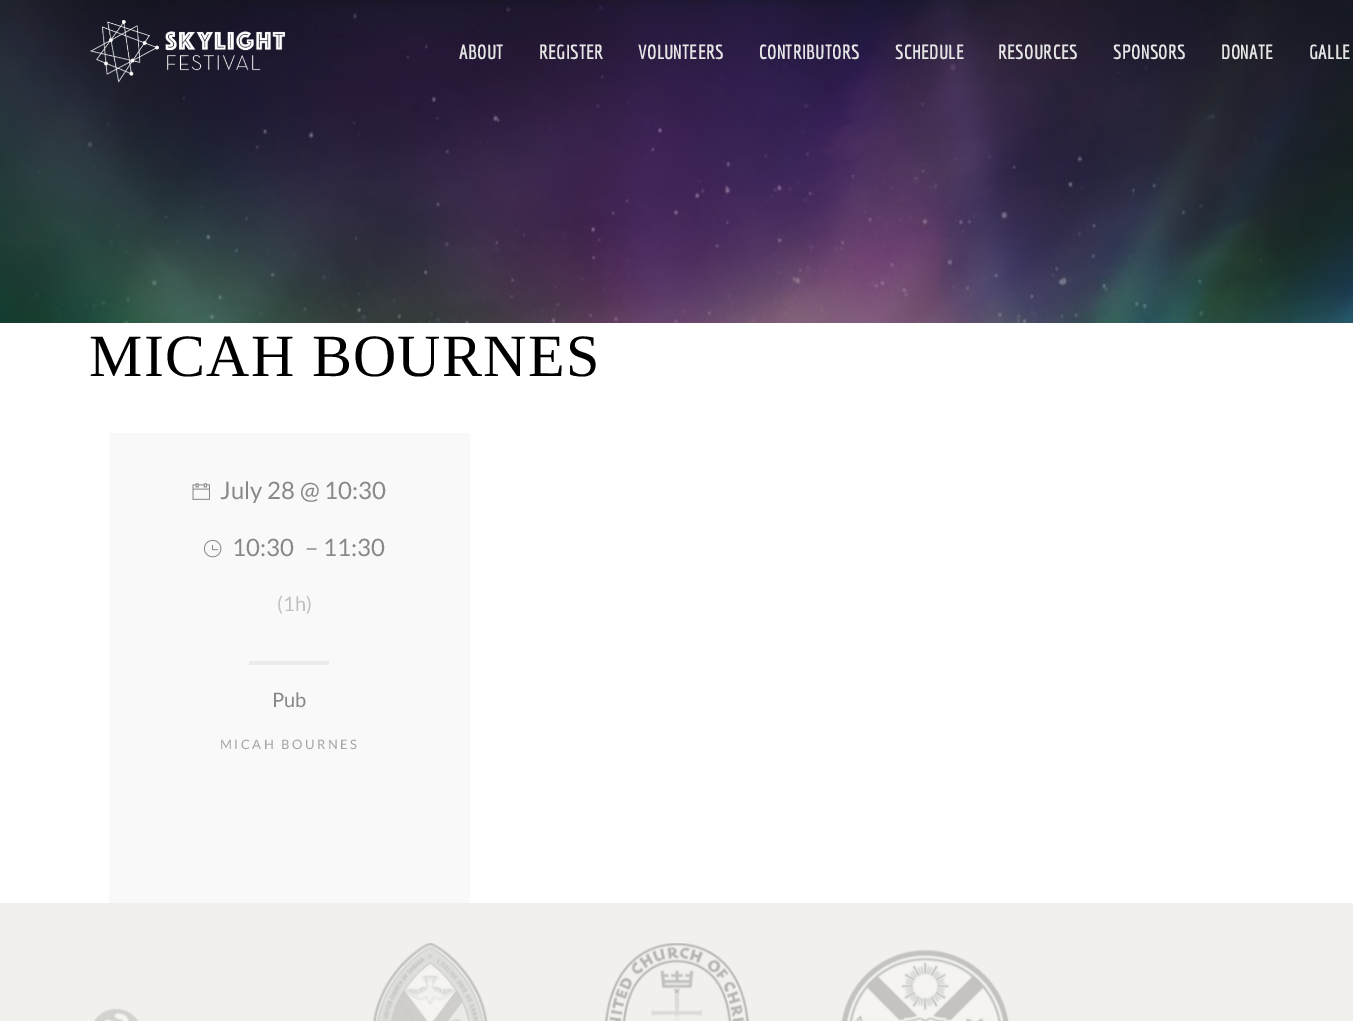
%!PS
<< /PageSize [1353 1021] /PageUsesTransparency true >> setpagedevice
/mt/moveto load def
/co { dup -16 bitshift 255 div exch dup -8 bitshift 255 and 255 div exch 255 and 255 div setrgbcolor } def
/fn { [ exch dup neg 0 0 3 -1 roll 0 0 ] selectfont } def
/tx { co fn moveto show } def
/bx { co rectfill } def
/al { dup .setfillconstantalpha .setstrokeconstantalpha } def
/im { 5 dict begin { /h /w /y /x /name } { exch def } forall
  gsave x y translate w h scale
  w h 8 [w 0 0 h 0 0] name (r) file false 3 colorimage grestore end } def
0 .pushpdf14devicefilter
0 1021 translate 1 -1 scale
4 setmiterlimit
0 0 1353 1021 16#FFFFFF bx
0 0 1353 323 16#222222 bx
(media/1.raw) 0 0 1353 323 im
(media/2.raw) 90 20 196 63 im
(media/3.raw) 192 483 18 17 im
(media/4.raw) 203 539 19 19 im
0.05 al
109 433 361 470 16#888888 bx
1 al
249 661 80 4 16#EBEBEB bx
0 903 1353 118 16#F1F0EC bx
(media/5.raw) 94 1008 45 13 im
(media/6.raw) 373 943 115 78 im
(media/7.raw) 604 943 145 78 im
(media/8.raw) 841 949 168 72 im
(ABOUT) 459 59 /Economica-Bold 20 16#E5E5E5 tx
(REGISTER) 539 59 /Economica-Bold 20 16#E5E5E5 tx
(VOLUNTEERS) 638 59 /Economica-Bold 20 16#E5E5E5 tx
(CONTRIBUTORS) 759 59 /Economica-Bold 20 16#E5E5E5 tx
(SCHEDULE) 895 59 /Economica-Bold 20 16#E5E5E5 tx
(RESOURCES) 998 59 /Economica-Bold 20 16#E5E5E5 tx
(SPONSORS) 1113 59 /Economica-Bold 20 16#E5E5E5 tx
(DONATE) 1221 59 /Economica-Bold 20 16#E5E5E5 tx
(GALLE) 1309 59 /Economica-Bold 20 16#E5E5E5 tx
/LiberationSerif-Regular 60 fn
16#000000 co
89 376 mt 1.25 0 (MICAH BOURNES) ashow
(July 28 @ 10:30) 220 499 /Lato-Regular 24 16#888888 tx
(10:30) 232 556 /Lato-Regular 24 16#888888 tx
(– 11:30) 305 556 /Lato-Regular 24 16#888888 tx
(\(1h\)) 277 611 /Lato-Regular 20 16#C1C1C1 tx
(Pub) 272 707 /Lato-Regular 20 16#888888 tx
/Lato-Regular 13 fn
16#A4A4A4 co
220 749 mt 2.5 0 (MICAH BOURNES) ashow
.poppdf14devicefilter showpage
